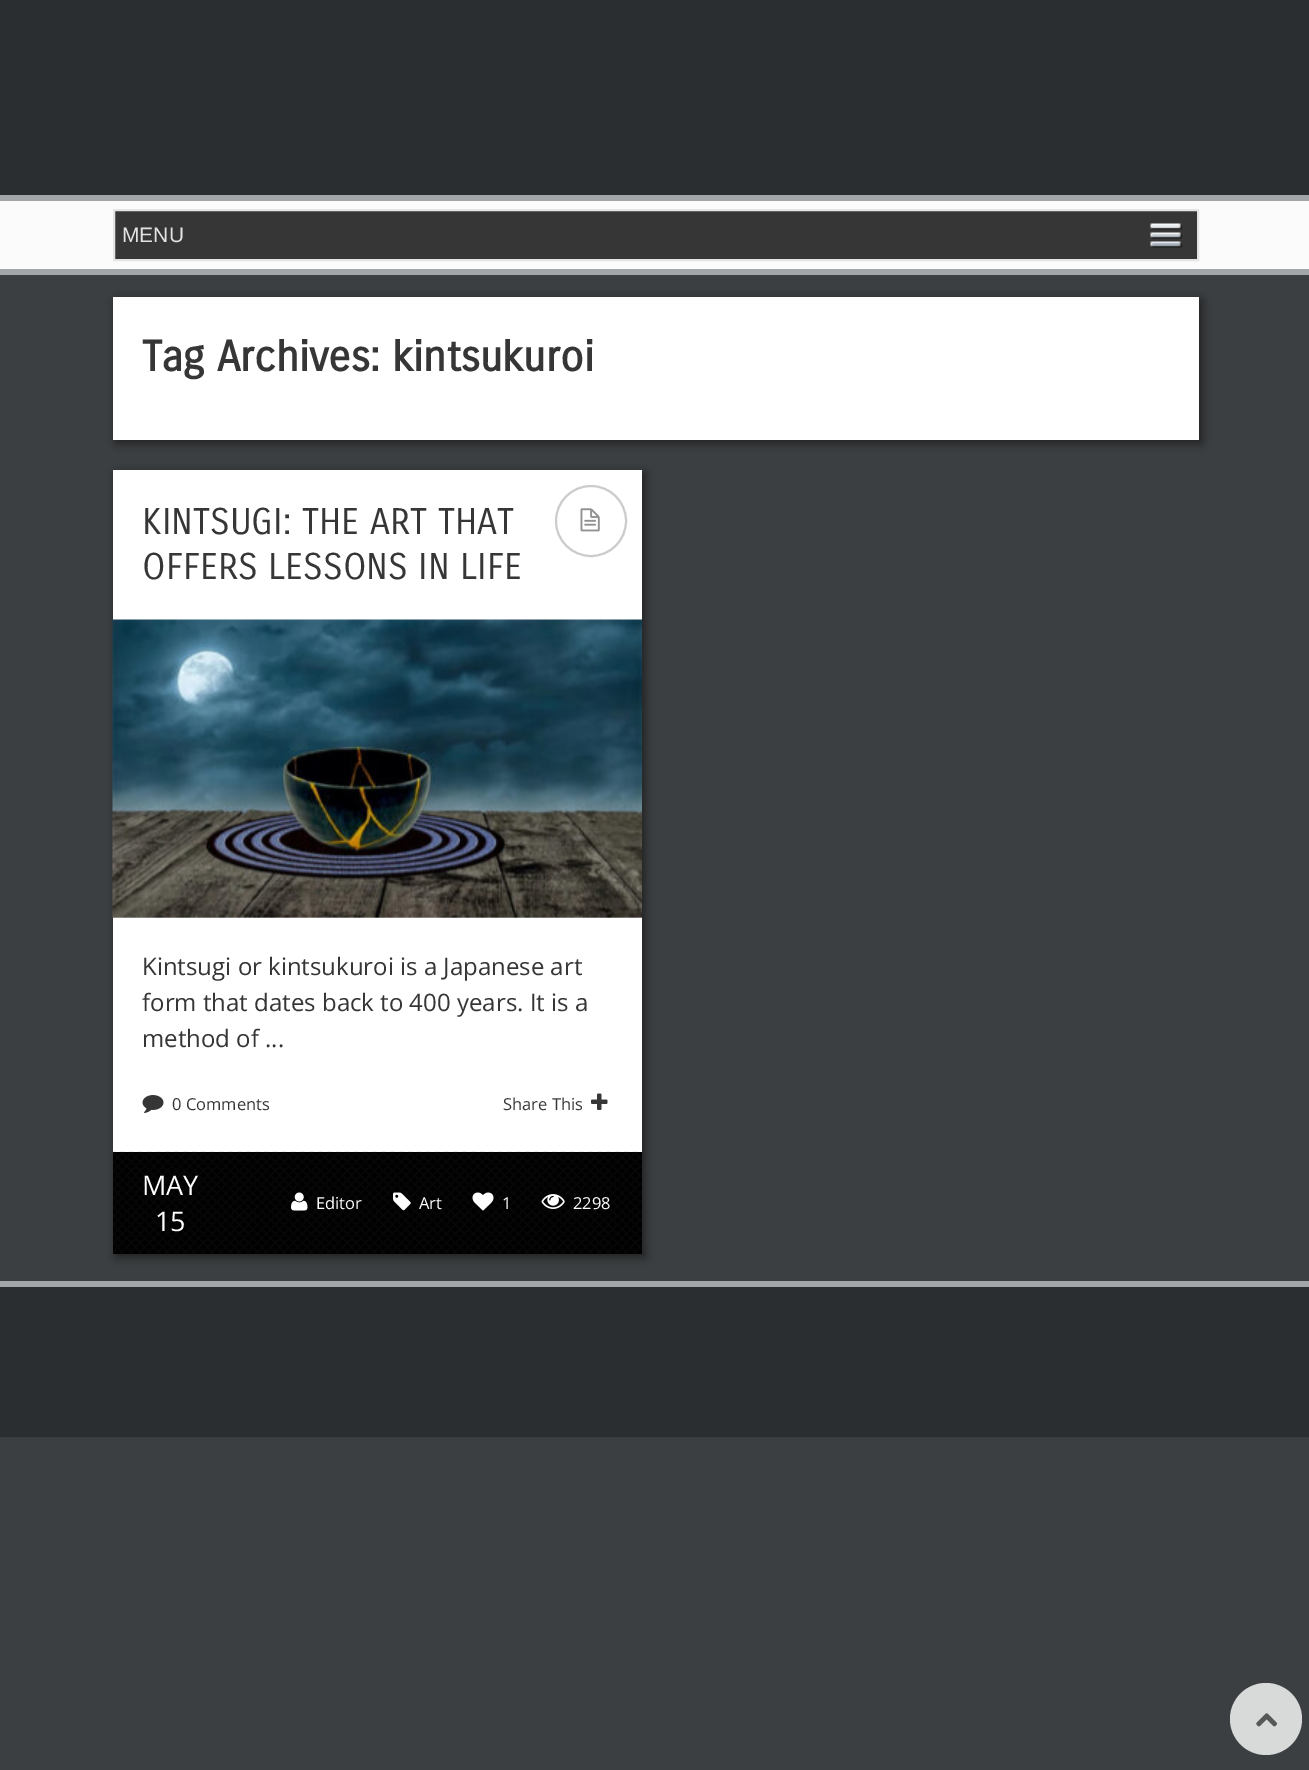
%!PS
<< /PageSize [1309 1770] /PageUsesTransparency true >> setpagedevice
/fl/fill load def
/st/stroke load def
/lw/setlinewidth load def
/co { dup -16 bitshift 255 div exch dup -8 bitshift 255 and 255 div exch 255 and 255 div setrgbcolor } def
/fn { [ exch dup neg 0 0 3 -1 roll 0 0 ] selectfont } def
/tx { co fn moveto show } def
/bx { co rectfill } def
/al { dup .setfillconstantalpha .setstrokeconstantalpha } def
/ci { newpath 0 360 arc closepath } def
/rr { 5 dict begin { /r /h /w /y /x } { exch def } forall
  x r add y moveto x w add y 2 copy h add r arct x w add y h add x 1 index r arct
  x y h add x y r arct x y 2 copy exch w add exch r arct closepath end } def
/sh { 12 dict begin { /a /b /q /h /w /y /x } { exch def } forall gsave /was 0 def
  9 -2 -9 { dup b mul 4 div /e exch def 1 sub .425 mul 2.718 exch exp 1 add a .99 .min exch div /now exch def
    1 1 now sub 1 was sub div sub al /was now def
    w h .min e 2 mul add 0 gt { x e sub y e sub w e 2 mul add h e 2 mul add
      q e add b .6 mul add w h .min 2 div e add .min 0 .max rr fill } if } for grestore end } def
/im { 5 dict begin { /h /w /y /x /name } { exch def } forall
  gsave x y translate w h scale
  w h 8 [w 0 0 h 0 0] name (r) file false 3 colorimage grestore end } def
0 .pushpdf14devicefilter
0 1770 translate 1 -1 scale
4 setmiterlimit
0 0 1309 1770 16#3B3F41 bx
0 0 1309 195 16#2B2E30 bx
0 201 1309 68 16#FBFBFB bx
0 195 1309 6 16#A3A6A8 bx
0 269 1309 6 16#A3A6A8 bx
115 211 1082 48 16#363636 bx
(media/1.raw) 1150 223 33 25 im
16#E3E4E4 co
2 lw
114 210 1084 50 rectstroke
16#000000 co
116 300 1086 143 0 5 .5 sh
113 297 1086 143 16#FFFFFF bx
16#000000 co
116 473 529 784 0 5 .5 sh
113 470 529 682 16#FFFFFF bx
16#CCCCCC co
591 521 35 ci st
(media/2.raw) 580 508 20 24 im
(media/3.raw) 112 619 530 299 im
(media/4.raw) 142 1095 22 18 im
(media/5.raw) 591 1093 17 17 im
113 1152 529 102 16#000000 bx
(media/6.raw) 113 1151 529 103 im
(media/7.raw) 291 1192 17 19 im
(media/8.raw) 393 1192 18 19 im
(media/9.raw) 472 1192 22 19 im
(media/10.raw) 541 1194 24 15 im
0 1287 1309 150 16#2B2E30 bx
0 1281 1309 6 16#A3A6A8 bx
16#D8D9D9 co
1266 1719 36 ci fl
(media/11.raw) 1256 1713 21 14 im
(MENU) 122 242 /LiberationSans-Regular 21 16#E2E2E2 tx
(Tag Archives: kintsukuroi) 142 371 /CarroisGothic-Bold 42 16#363636 tx
(KINTSUGI: THE ART THAT) 142 534 /CarroisGothic-Regular 36 16#363636 tx
(OFFERS LESSONS IN LIFE) 142 579 /CarroisGothic-Regular 36 16#363636 tx
(Kintsugi or kintsukuroi is a Japanese art) 142 975 /OpenSans-Regular 24 16#363636 tx
(form that dates back to 400 years. It is a) 142 1011 /OpenSans-Regular 24 16#363636 tx
(method of ...) 142 1047 /OpenSans-Regular 24 16#363636 tx
(0 Comments) 172 1110 /OpenSans-Regular 16.5 16#363636 tx
(Share This) 503 1110 /OpenSans-Regular 16.5 16#363636 tx
(MAY) 142 1195 /OpenSans-Regular 27 16#FFFFFF tx
(15) 155 1231 /OpenSans-Regular 27 16#FFFFFF tx
(Editor) 316 1209 /OpenSans-Regular 16.5 16#FFFFFF tx
(Art) 419 1209 /OpenSans-Regular 16.5 16#FFFFFF tx
(1) 502 1209 /OpenSans-Regular 16.5 16#FFFFFF tx
(2298) 573 1209 /OpenSans-Regular 16.5 16#FFFFFF tx
.poppdf14devicefilter showpage
